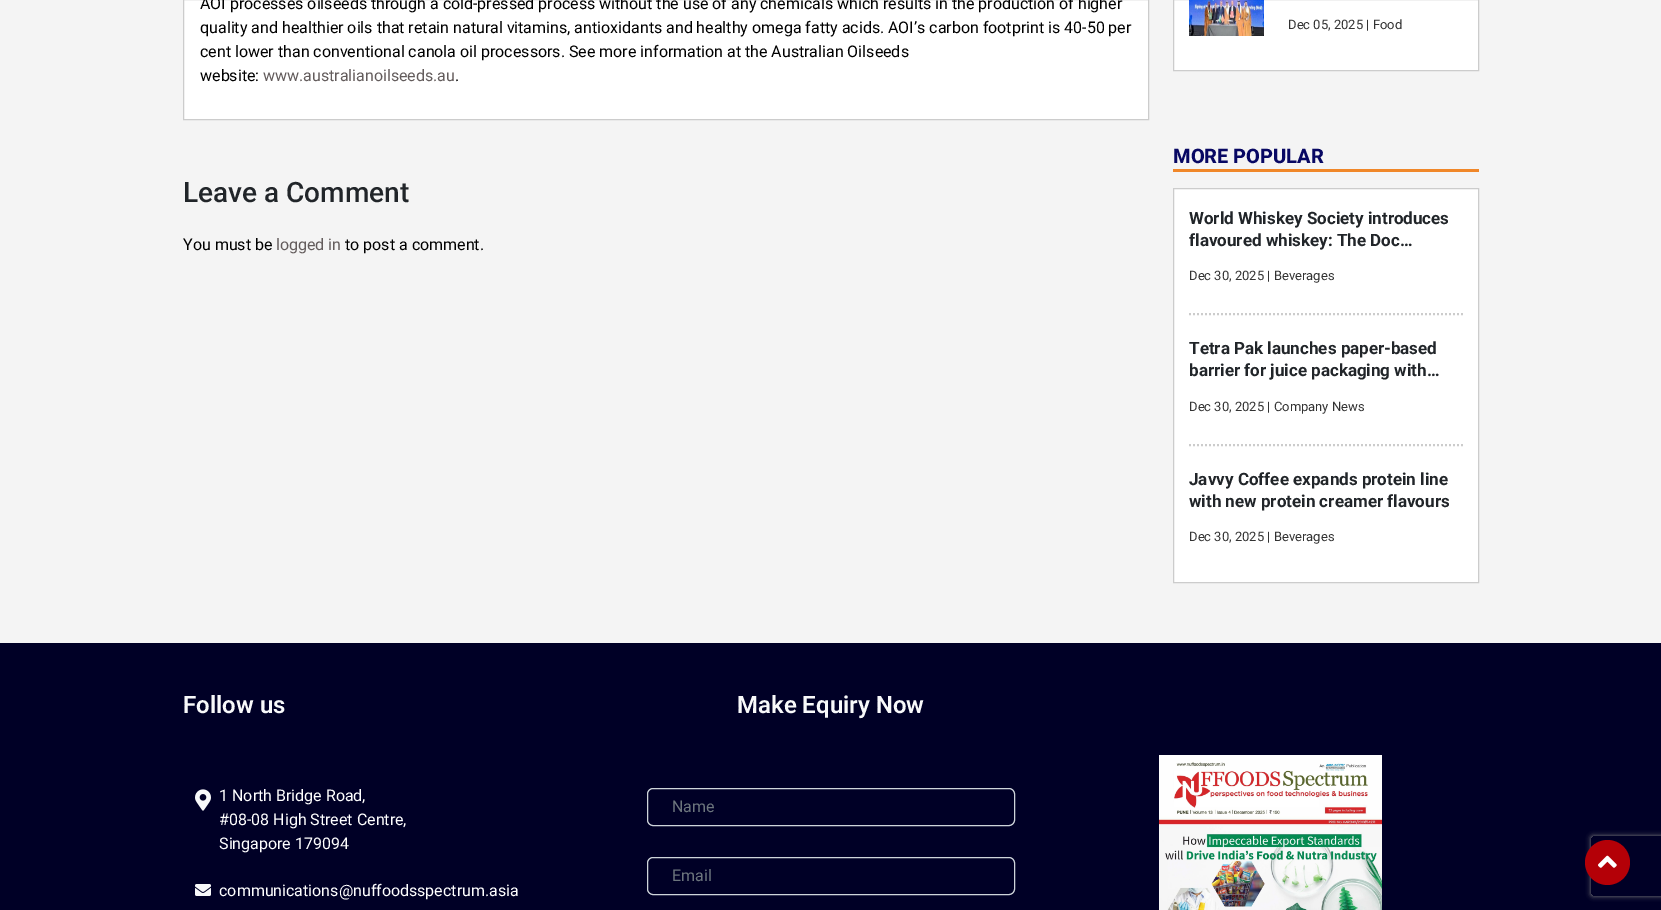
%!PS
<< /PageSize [1661 910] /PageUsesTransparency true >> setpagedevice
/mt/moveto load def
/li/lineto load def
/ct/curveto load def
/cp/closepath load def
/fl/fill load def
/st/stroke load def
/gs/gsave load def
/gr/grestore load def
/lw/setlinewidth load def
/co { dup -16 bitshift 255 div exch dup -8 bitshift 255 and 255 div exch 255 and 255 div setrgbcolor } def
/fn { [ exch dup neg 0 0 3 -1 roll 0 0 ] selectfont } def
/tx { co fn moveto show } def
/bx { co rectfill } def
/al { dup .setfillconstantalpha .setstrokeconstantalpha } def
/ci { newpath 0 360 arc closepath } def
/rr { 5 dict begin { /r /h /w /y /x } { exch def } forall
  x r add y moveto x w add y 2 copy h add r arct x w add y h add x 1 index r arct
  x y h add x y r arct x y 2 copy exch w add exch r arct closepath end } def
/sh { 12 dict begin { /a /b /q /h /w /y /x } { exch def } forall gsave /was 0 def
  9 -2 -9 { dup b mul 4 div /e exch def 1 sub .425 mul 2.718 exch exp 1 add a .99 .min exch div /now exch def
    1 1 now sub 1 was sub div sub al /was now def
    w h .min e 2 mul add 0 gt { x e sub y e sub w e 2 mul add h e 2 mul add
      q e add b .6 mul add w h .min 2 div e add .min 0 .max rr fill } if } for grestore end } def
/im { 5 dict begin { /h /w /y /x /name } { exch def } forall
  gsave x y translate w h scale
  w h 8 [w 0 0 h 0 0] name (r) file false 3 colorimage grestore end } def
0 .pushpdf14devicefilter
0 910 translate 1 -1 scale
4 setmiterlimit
0 0 1661 910 16#F4F4F4 bx
16#FFFFFF co
183.5 -.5 mt 1148.5 -.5 li 1148.5 119.5 li 183.5 119.5 li cp gs fl gr
16#CCCCCC co
st
16#FFFFFF co
1173.5 -.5 mt 1478.5 -.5 li 1478.5 70.5 li 1173.5 70.5 li cp gs fl gr
16#CCCCCC co
st
(media/1.raw) 1189 0 75 36 im
1173 169 306 3 16#F08729 bx
16#FFFFFF co
1173.5 188.5 mt 1478.5 188.5 li 1478.5 582.5 li 1173.5 582.5 li cp gs fl gr
16#CCCCCC co
st
2 lw
[2 2] 0 setdash
1189 314 mt 1463 314 li st
1189 445 mt 1463 445 li st
0 643 1661 267 16#000026 bx
(media/2.raw) 195 789 16 22 im
(media/3.raw) 195 884 16 12 im
16#CED4DA co
1 lw
[] 0 setdash
647.5 788.5 367 37 5.5 rr st
647.5 857.5 367 37 5.5 rr st
(media/4.raw) 1159 755 223 155 im
gs
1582 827 mt 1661 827 li 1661 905 li 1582 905 li cp 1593 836 mt 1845 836 li 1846 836 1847 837 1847 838 ct 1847 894 li 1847 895 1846 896 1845 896 ct 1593 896 li 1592 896 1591 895 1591 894 ct 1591 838 li 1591 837 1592 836 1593 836 ct cp eoclip newpath
16#808080 co
1591 836 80 60 2 2.5 1 sh
gr
16#B40007 co
1607.5 862.5 22.5 ci fl
(media/5.raw) 1598 855 19 13 im
(AOI processes oilseeds through a cold-pressed process without the use of any chemicals which results in the production of higher) 200 9 /Roboto-Regular 16 16#000000 tx
(quality and healthier oils that retain natural vitamins, antioxidants and healthy omega fatty acids. AOI’s carbon footprint is 40-50 per) 200 33 /Roboto-Regular 16 16#000000 tx
(cent lower than conventional canola oil processors. See more information at the Australian Oilseeds) 200 57 /Roboto-Regular 16 16#000000 tx
(website:) 200 81 /Roboto-Regular 16 16#000000 tx
(www.australianoilseeds.au) 263 81 /Roboto-Regular 16 16#635C5C tx
(.) 455 81 /Roboto-Regular 16 16#000000 tx
(Leave a Comment) 183 202 /Roboto-Medium 28 16#212529 tx
(You must be) 183 250 /Roboto-Regular 16 16#000000 tx
(logged in) 276 250 /Roboto-Regular 16 16#635C5C tx
(to post a comment.) 345 250 /Roboto-Regular 16 16#000000 tx
(Dec 05, 2025 | Food) 1288 29 /Roboto-Regular 13 16#333333 tx
(MORE POPULAR) 1173 163 /Roboto-ExtraBold 20 16#080863 tx
(World Whiskey Society introduces) 1189 224 /Roboto-Bold 17 16#212529 tx
(flavoured whiskey: The Doc…) 1189 246 /Roboto-Bold 17 16#212529 tx
(Dec 30, 2025 | Beverages) 1189 280 /Roboto-Regular 13 16#333333 tx
(Tetra Pak launches paper-based) 1189 354 /Roboto-Bold 17 16#212529 tx
(barrier for juice packaging with…) 1189 376 /Roboto-Bold 17 16#212529 tx
(Dec 30, 2025 | Company News) 1189 411 /Roboto-Regular 13 16#333333 tx
(Javvy Coffee expands protein line) 1189 485 /Roboto-Bold 17 16#212529 tx
(with new protein creamer flavours) 1189 507 /Roboto-Bold 17 16#212529 tx
(Dec 30, 2025 | Beverages) 1189 541 /Roboto-Regular 13 16#333333 tx
(Follow us) 183 713 /Roboto-SemiBold 24 16#F8F9FA tx
(1 North Bridge Road,) 219 801 /Roboto-Regular 16 16#FFFFFF tx
(#08-08 High Street Centre,) 219 825 /Roboto-Regular 16 16#FFFFFF tx
(Singapore 179094) 219 849 /Roboto-Regular 16 16#FFFFFF tx
(communications@nuffoodsspectrum.asia) 219 896 /Roboto-Regular 16 16#FFFFFF tx
(Make Equiry Now) 737 713 /Roboto-SemiBold 24 16#F8F9FA tx
(Name) 672 812 /Roboto-Regular 16 16#6C757D tx
(Email) 672 881 /Roboto-Regular 16 16#6C757D tx
.poppdf14devicefilter showpage
